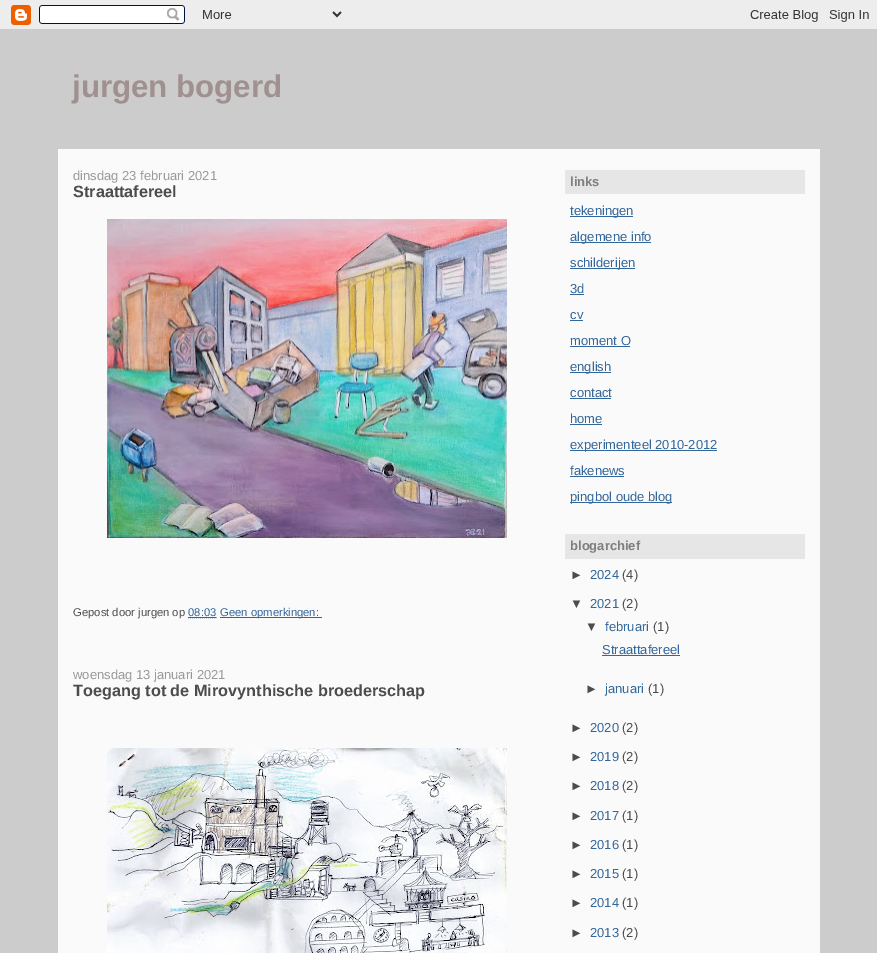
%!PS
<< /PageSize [877 953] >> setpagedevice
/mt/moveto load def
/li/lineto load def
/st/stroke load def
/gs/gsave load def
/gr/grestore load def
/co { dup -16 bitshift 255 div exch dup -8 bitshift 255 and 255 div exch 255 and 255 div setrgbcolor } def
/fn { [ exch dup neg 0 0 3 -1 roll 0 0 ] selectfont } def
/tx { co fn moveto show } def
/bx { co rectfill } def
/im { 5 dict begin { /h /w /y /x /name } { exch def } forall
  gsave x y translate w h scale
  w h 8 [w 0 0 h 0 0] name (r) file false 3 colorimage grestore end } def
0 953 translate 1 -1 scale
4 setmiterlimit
0 0 877 953 16#CCCCCC bx
(media/1.raw) 0 0 877 29 im
58 149 762 804 16#FAFAFA bx
(media/2.raw) 107 219 400 319 im
16#336699 co
[1 1] 0 setdash
188 617.5 mt 216.5 617.5 li st
188 617 28 1 16#336699 bx
220 617 102 1 16#336699 bx
(media/3.raw) 107 748 400 205 im
565 170 240 24 16#E6E6E6 bx
570 216 63 1 16#336699 bx
570 242 81 1 16#336699 bx
570 268 65 1 16#336699 bx
570 294 14 1 16#336699 bx
570 320 13 1 16#336699 bx
570 346 60 1 16#336699 bx
570 372 41 1 16#336699 bx
570 398 41 1 16#336699 bx
570 424 32 1 16#336699 bx
570 450 147 1 16#336699 bx
570 476 54 1 16#336699 bx
570 502 102 1 16#336699 bx
565 534 240 25 16#E6E6E6 bx
602 655 78 1 16#336699 bx
(jurgen bogerd) 72 97 /LiberationSans-Bold 31.25 16#A09090 tx
(dinsdag 23 februari 2021) 73 180 /LiberationSans-Regular 13 16#999999 tx
(Straattafereel) 73 197 /LiberationSans-Bold 16.25 16#4C4C4C tx
(Gepost door jurgen op) 73 616 /LiberationSans-Regular 11.25 16#4C4C4C tx
(08:03) 188 616 /LiberationSans-Regular 11.25 16#336699 tx
(Geen opmerkingen:) 220 616 /LiberationSans-Regular 11.25 16#336699 tx
(woensdag 13 januari 2021) 73 679 /LiberationSans-Regular 13 16#999999 tx
gs
73 149 468 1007 rectclip
(Toegang tot de Mirovynthische broederschap) 73 696 /LiberationSans-Bold 16.25 16#4C4C4C tx
gr
(links) 570 186 /LiberationSans-Bold 13 16#7F7F7F tx
(tekeningen) 570 215 /LiberationSans-Regular 13 16#336699 tx
(algemene info) 570 241 /LiberationSans-Regular 13 16#336699 tx
(schilderijen) 570 267 /LiberationSans-Regular 13 16#336699 tx
(3d) 570 293 /LiberationSans-Regular 13 16#336699 tx
(cv) 570 319 /LiberationSans-Regular 13 16#336699 tx
(moment O) 570 345 /LiberationSans-Regular 13 16#336699 tx
(english) 570 371 /LiberationSans-Regular 13 16#336699 tx
(contact) 570 397 /LiberationSans-Regular 13 16#336699 tx
(home) 570 423 /LiberationSans-Regular 13 16#336699 tx
(experimenteel 2010-2012) 570 449 /LiberationSans-Regular 13 16#336699 tx
(fakenews) 570 475 /LiberationSans-Regular 13 16#336699 tx
(pingbol oude blog) 570 501 /LiberationSans-Regular 13 16#336699 tx
(blogarchief) 570 550 /LiberationSans-Bold 13 16#7F7F7F tx
(►) 570 579 /LiberationSans-Regular 13 16#4C4C4C tx
(2024) 590 579 /LiberationSans-Regular 13 16#336699 tx
(\(4\)) 622 579 /LiberationSans-Regular 13 16#4C4C4C tx
(▼) 570 608 /LiberationSans-Regular 13 16#4C4C4C tx
(2021) 590 608 /LiberationSans-Regular 13 16#336699 tx
(\(2\)) 622 608 /LiberationSans-Regular 13 16#4C4C4C tx
(▼) 585 631 /LiberationSans-Regular 13 16#4C4C4C tx
(februari) 605 631 /LiberationSans-Regular 13 16#336699 tx
(\(1\)) 653 631 /LiberationSans-Regular 13 16#4C4C4C tx
(Straattafereel) 602 654 /LiberationSans-Regular 13 16#336699 tx
(►) 585 693 /LiberationSans-Regular 13 16#4C4C4C tx
(januari) 605 693 /LiberationSans-Regular 13 16#336699 tx
(\(1\)) 648 693 /LiberationSans-Regular 13 16#4C4C4C tx
(►) 570 732 /LiberationSans-Regular 13 16#4C4C4C tx
(2020) 590 732 /LiberationSans-Regular 13 16#336699 tx
(\(2\)) 622 732 /LiberationSans-Regular 13 16#4C4C4C tx
(►) 570 761 /LiberationSans-Regular 13 16#4C4C4C tx
(2019) 590 761 /LiberationSans-Regular 13 16#336699 tx
(\(2\)) 622 761 /LiberationSans-Regular 13 16#4C4C4C tx
(►) 570 790 /LiberationSans-Regular 13 16#4C4C4C tx
(2018) 590 790 /LiberationSans-Regular 13 16#336699 tx
(\(2\)) 622 790 /LiberationSans-Regular 13 16#4C4C4C tx
(►) 570 820 /LiberationSans-Regular 13 16#4C4C4C tx
(2017) 590 820 /LiberationSans-Regular 13 16#336699 tx
(\(1\)) 622 820 /LiberationSans-Regular 13 16#4C4C4C tx
(►) 570 849 /LiberationSans-Regular 13 16#4C4C4C tx
(2016) 590 849 /LiberationSans-Regular 13 16#336699 tx
(\(1\)) 622 849 /LiberationSans-Regular 13 16#4C4C4C tx
(►) 570 878 /LiberationSans-Regular 13 16#4C4C4C tx
(2015) 590 878 /LiberationSans-Regular 13 16#336699 tx
(\(1\)) 622 878 /LiberationSans-Regular 13 16#4C4C4C tx
(►) 570 907 /LiberationSans-Regular 13 16#4C4C4C tx
(2014) 590 907 /LiberationSans-Regular 13 16#336699 tx
(\(1\)) 622 907 /LiberationSans-Regular 13 16#4C4C4C tx
(►) 570 937 /LiberationSans-Regular 13 16#4C4C4C tx
(2013) 590 937 /LiberationSans-Regular 13 16#336699 tx
(\(2\)) 622 937 /LiberationSans-Regular 13 16#4C4C4C tx
showpage
